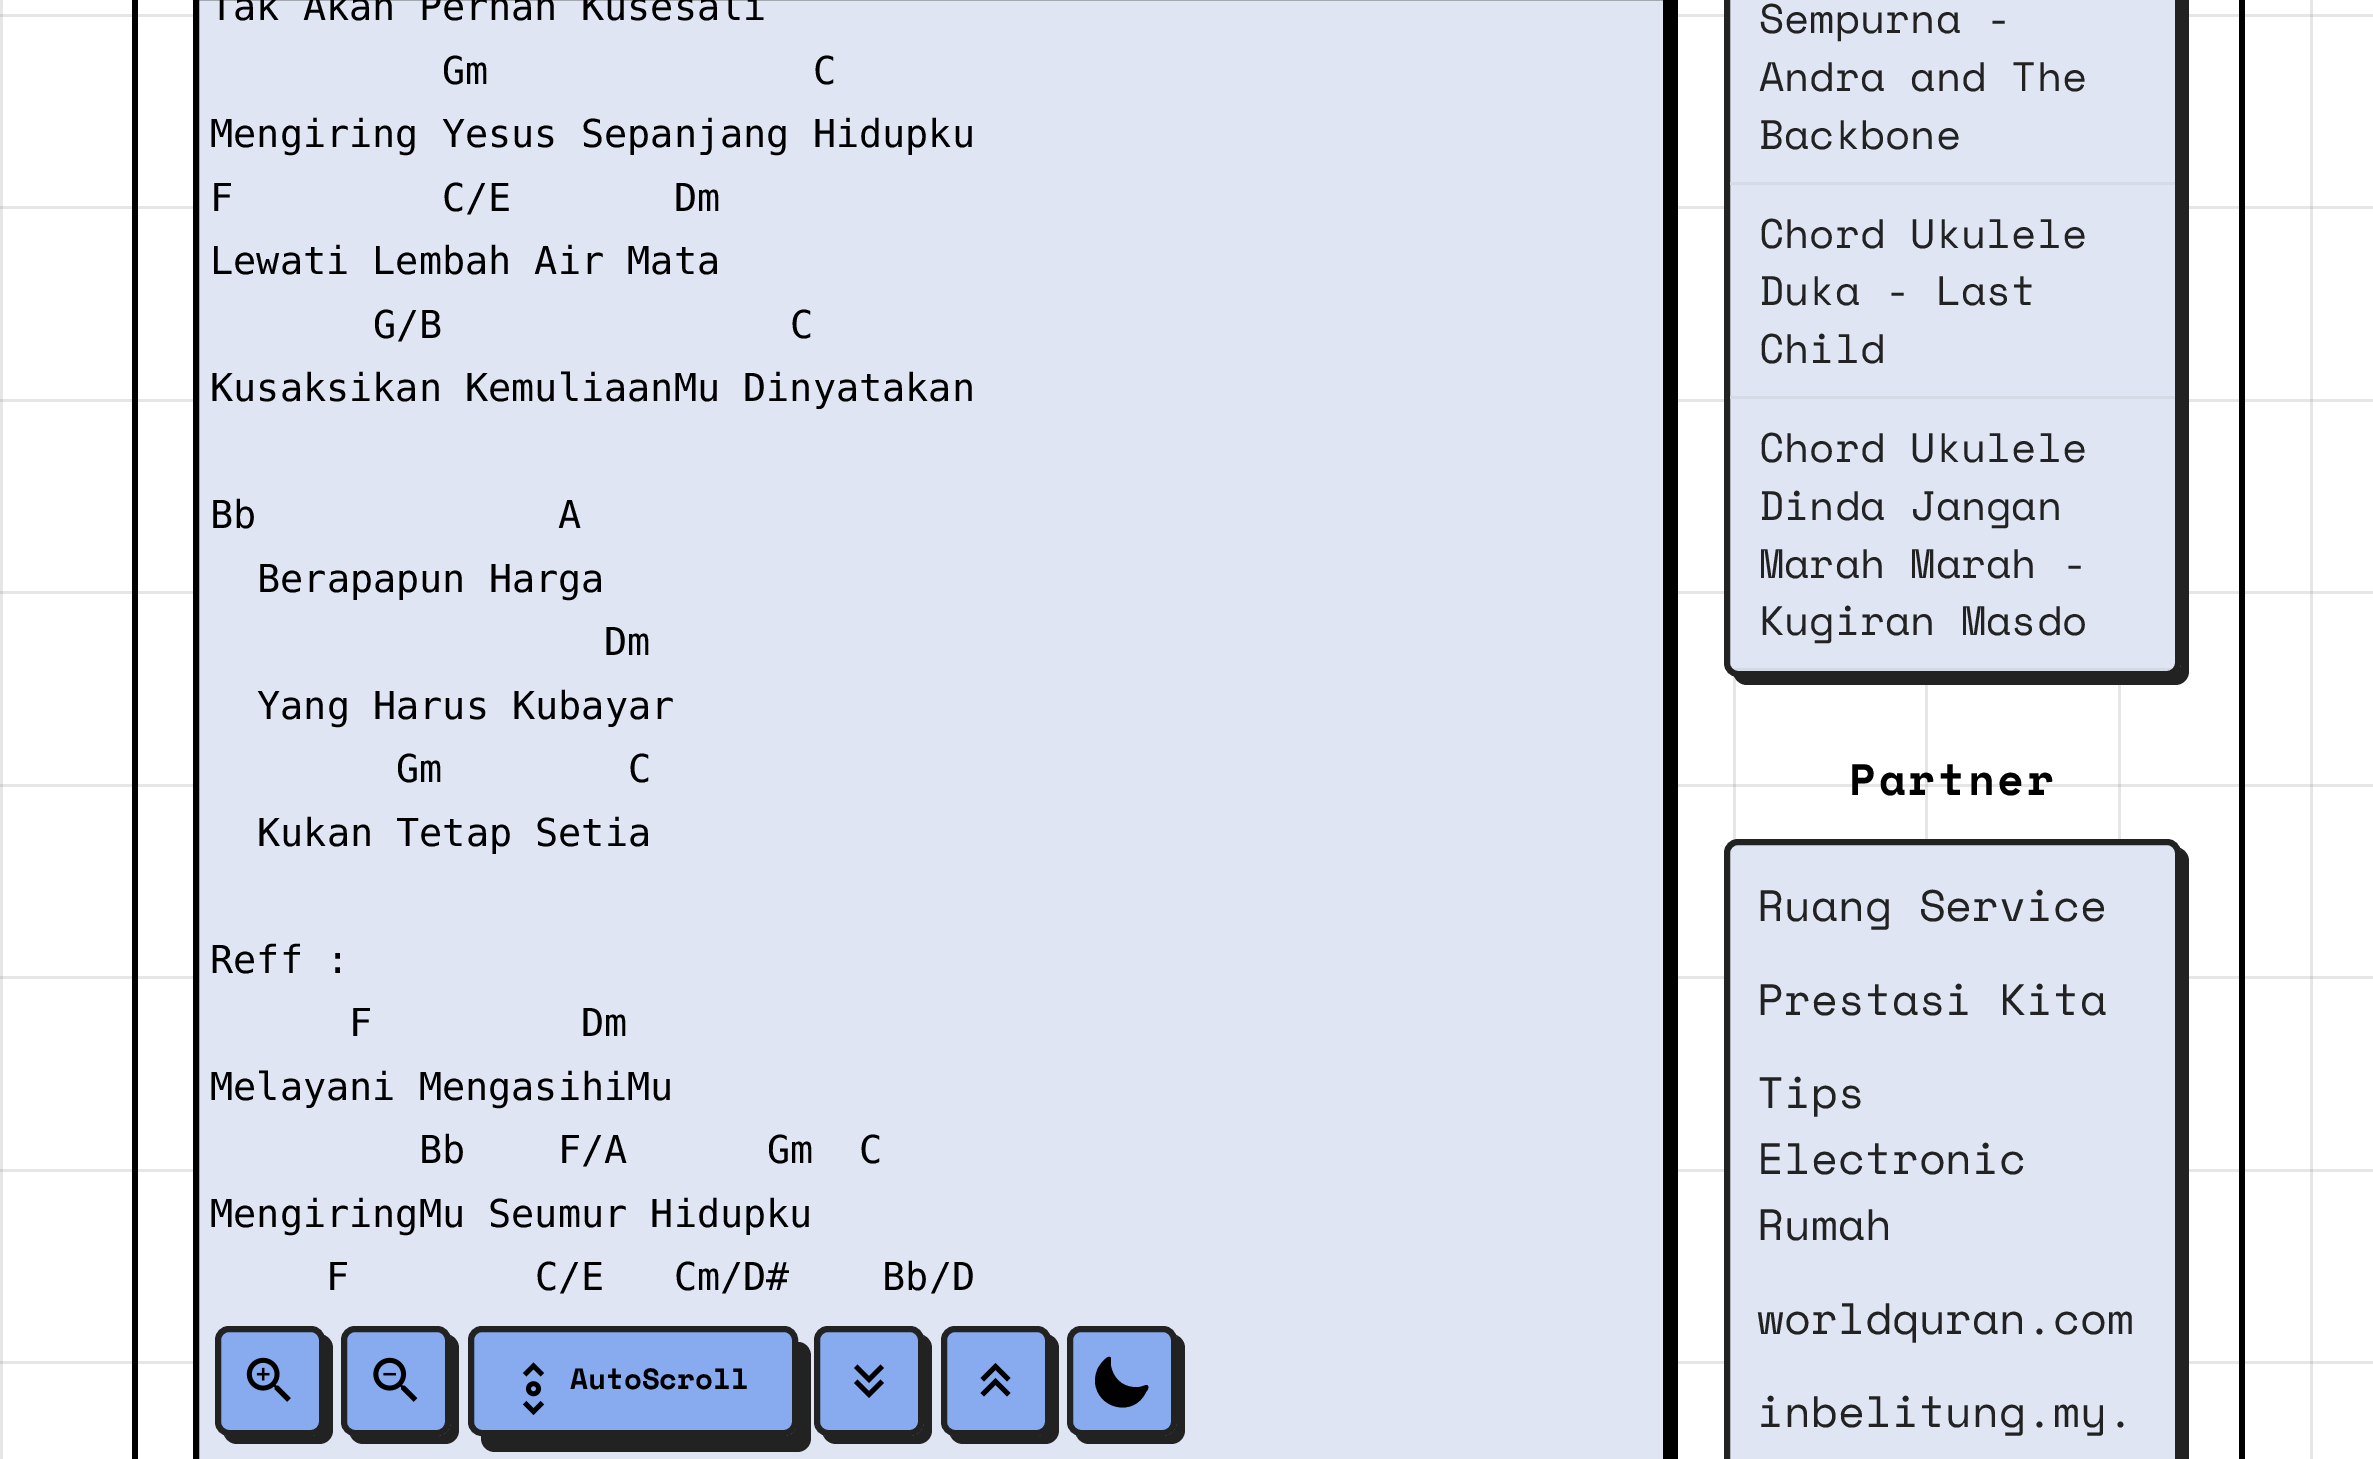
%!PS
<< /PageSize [2373 1459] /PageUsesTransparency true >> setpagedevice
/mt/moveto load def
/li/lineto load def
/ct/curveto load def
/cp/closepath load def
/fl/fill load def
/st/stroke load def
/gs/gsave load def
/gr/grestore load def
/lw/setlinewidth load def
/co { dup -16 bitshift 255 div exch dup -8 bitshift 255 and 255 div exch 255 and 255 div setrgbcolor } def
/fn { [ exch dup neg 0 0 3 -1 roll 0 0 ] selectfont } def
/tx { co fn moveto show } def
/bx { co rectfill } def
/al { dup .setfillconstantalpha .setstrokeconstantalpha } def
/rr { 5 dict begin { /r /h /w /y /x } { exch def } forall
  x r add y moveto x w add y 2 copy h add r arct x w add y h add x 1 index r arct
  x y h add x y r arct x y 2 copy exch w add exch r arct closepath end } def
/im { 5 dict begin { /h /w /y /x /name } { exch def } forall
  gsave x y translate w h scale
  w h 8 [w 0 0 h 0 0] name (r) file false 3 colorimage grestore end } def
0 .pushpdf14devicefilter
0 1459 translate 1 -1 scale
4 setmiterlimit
0 0 2373 1459 16#FFFFFF bx
2310 0 3 1459 16#E6E6E6 bx
2118 685 3 154 16#E6E6E6 bx
1925 685 3 154 16#E6E6E6 bx
1733 676 3 164 16#E6E6E6 bx
0 0 3 1459 16#E6E6E6 bx
0 14 2373 3 16#E6E6E6 bx
2310 14 3 3 16#D2D2D2 bx
0 14 3 3 16#D2D2D2 bx
0 206 2373 3 16#E6E6E6 bx
2310 206 3 3 16#D2D2D2 bx
0 206 3 3 16#D2D2D2 bx
0 399 2373 3 16#E6E6E6 bx
2310 399 3 3 16#D2D2D2 bx
0 399 3 3 16#D2D2D2 bx
0 591 2373 3 16#E6E6E6 bx
2310 591 3 3 16#D2D2D2 bx
0 591 3 3 16#D2D2D2 bx
0 784 2373 3 16#E6E6E6 bx
2310 784 3 3 16#D2D2D2 bx
2118 784 3 3 16#D2D2D2 bx
1925 784 3 3 16#D2D2D2 bx
1733 784 3 3 16#D2D2D2 bx
0 784 3 3 16#D2D2D2 bx
0 976 2373 3 16#E6E6E6 bx
2310 976 3 3 16#D2D2D2 bx
0 976 3 3 16#D2D2D2 bx
0 1169 2373 3 16#E6E6E6 bx
2310 1169 3 3 16#D2D2D2 bx
0 1169 3 3 16#D2D2D2 bx
0 1361 2373 3 16#E6E6E6 bx
2310 1361 3 3 16#D2D2D2 bx
0 1361 3 3 16#D2D2D2 bx
2239 0 6 1459 16#000000 bx
132 0 6 1459 16#000000 bx
202 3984 mt 204 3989 209 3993 215 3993 ct 1664 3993 li 1672 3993 1678 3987 1678 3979 ct 1678 -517 li 1678 -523 1674 -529 1668 -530 ct 1669 -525 li 1669 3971 li 1669 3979 1663 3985 1656 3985 ct 206 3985 li cp fl
16#DFE5F2 co
196 -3 mt 1666 -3 li 1666 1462 li 196 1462 li cp gs fl gr
16#000000 co
6 lw
st
16#222222 co
224 1435 mt 226 1440 231 1444 237 1444 ct 319 1444 li 327 1444 333 1438 333 1430 ct 333 1348 li 333 1342 329 1337 324 1335 ct 324 1339 li 324 1422 li 324 1429 318 1436 311 1436 ct 228 1436 li cp fl
16#88AAEE co
218 1329 104 104 11 rr gs fl gr
16#222222 co
st
(media/1.raw) 246 1357 45 45 im
350 1435 mt 352 1440 357 1444 363 1444 ct 445 1444 li 453 1444 459 1438 459 1430 ct 459 1348 li 459 1342 455 1337 450 1335 ct 451 1339 li 451 1422 li 451 1429 445 1436 437 1436 ct 355 1436 li cp fl
16#88AAEE co
344 1329 104 104 11 rr gs fl gr
16#222222 co
st
(media/2.raw) 373 1357 45 45 im
481 1435 mt 481 1438 li 481 1446 487 1452 495 1452 ct 797 1452 li 805 1452 811 1446 811 1438 ct 811 1356 li 811 1348 805 1342 798 1342 ct 798 1408 li 798 1419 800 1435 784 1436 ct cp fl
16#88AAEE co
471 1329 324 104 11 rr gs fl gr
16#222222 co
st
(media/3.raw) 522 1362 23 54 im
823 1435 mt 825 1440 830 1444 836 1444 ct 918 1444 li 926 1444 932 1438 932 1430 ct 932 1348 li 932 1342 928 1337 923 1335 ct 924 1339 li 924 1422 li 924 1429 918 1436 910 1436 ct 828 1436 li cp fl
16#88AAEE co
817 1329 104 104 11 rr gs fl gr
16#222222 co
st
16#000000 co
880.5 1364.5 mt 884 1368 li 869 1383 li 854 1368 li 857.5 1364.5 li 869 1376 li cp 880.5 1379.5 mt 884 1383 li 869 1398 li 854 1383 li 857.5 1379.5 li 869 1391 li cp fl
16#222222 co
950 1435 mt 952 1440 957 1444 963 1444 ct 1045 1444 li 1053 1444 1059 1438 1059 1430 ct 1059 1348 li 1059 1342 1055 1337 1050 1335 ct 1050 1339 li 1050 1422 li 1050 1429 1044 1436 1037 1436 ct 954 1436 li cp fl
16#88AAEE co
944 1329 104 104 11 rr gs fl gr
16#222222 co
st
16#000000 co
984 1396.5 mt 980.5 1393 li 995.5 1378 li 1010.5 1393 li 1007 1396.5 li 995.5 1385 li cp 984 1381.5 mt 980.5 1378 li 995.5 1363 li 1010.5 1378 li 1007 1381.5 li 995.5 1370 li cp fl
16#222222 co
1076 1435 mt 1078 1440 1083 1444 1089 1444 ct 1171 1444 li 1179 1444 1185 1438 1185 1430 ct 1185 1348 li 1185 1342 1181 1337 1176 1335 ct 1177 1339 li 1177 1422 li 1177 1429 1171 1436 1163 1436 ct 1081 1436 li cp fl
16#88AAEE co
1070 1329 104 104 11 rr gs fl gr
16#222222 co
st
16#000000 co
1133 1387 mt 1121 1386 1113 1377 1111 1366 ct 1111 1358 li 1108 1353 1099 1366 1098 1368 ct 1096 1372 1095 1377 1095 1382 ct 1097 1409 1134 1418 1146 1392 ct 1147 1391 1150 1387 1147 1385 ct 1145 1385 1141 1387 1139 1387 ct cp fl
16#222222 co
1734 676 mt 1736 681 1741 685 1747 685 ct 2175 685 li 2183 685 2189 679 2189 671 ct 2189 -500 li 2189 -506 2185 -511 2180 -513 ct 2181 -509 li 2181 663 li 2181 670 2175 676 2167 676 ct 1738 676 li cp fl
16#DFE5F2 co
1727 -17 451 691 11 rr gs fl gr
16#222222 co
st
1730 182 445 3 16#D4DAE6 bx
1730 396 445 3 16#D4DAE6 bx
0.05 al
1730 668 445 3 16#000000 bx
1 al
16#222222 co
1734 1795 mt 1736 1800 1741 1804 1747 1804 ct 2175 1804 li 2183 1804 2189 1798 2189 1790 ct 2189 861 li 2189 855 2185 850 2180 848 ct 2181 852 li 2181 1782 li 2181 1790 2175 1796 2167 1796 ct 1738 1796 li cp fl
16#DFE5F2 co
1727 842 451 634 11 rr gs fl gr
16#222222 co
st
(Tak Akan Pernah Kusesali) 210 20 /DejaVuSansMono-Regular 38.5 16#000000 tx
(Gm              C) 442 84 /DejaVuSansMono-Regular 38.5 16#000000 tx
(Mengiring Yesus Sepanjang Hidupku) 210 147 /DejaVuSansMono-Regular 38.5 16#000000 tx
(F         C/E       Dm) 210 211 /DejaVuSansMono-Regular 38.5 16#000000 tx
(Lewati Lembah Air Mata) 210 274 /DejaVuSansMono-Regular 38.5 16#000000 tx
(G/B               C) 373 338 /DejaVuSansMono-Regular 38.5 16#000000 tx
(Kusaksikan KemuliaanMu Dinyatakan) 210 401 /DejaVuSansMono-Regular 38.5 16#000000 tx
(Bb             A) 210 528 /DejaVuSansMono-Regular 38.5 16#000000 tx
(Berapapun Harga) 257 592 /DejaVuSansMono-Regular 38.5 16#000000 tx
(Dm) 604 655 /DejaVuSansMono-Regular 38.5 16#000000 tx
(Yang Harus Kubayar) 257 719 /DejaVuSansMono-Regular 38.5 16#000000 tx
(Gm        C) 396 782 /DejaVuSansMono-Regular 38.5 16#000000 tx
(Kukan Tetap Setia) 257 846 /DejaVuSansMono-Regular 38.5 16#000000 tx
(Reff :) 210 973 /DejaVuSansMono-Regular 38.5 16#000000 tx
(F         Dm) 349 1036 /DejaVuSansMono-Regular 38.5 16#000000 tx
(Melayani MengasihiMu) 210 1100 /DejaVuSansMono-Regular 38.5 16#000000 tx
(Bb    F/A      Gm  C) 419 1163 /DejaVuSansMono-Regular 38.5 16#000000 tx
(MengiringMu Seumur Hidupku) 210 1227 /DejaVuSansMono-Regular 38.5 16#000000 tx
(F        C/E   Cm/D#    Bb/D) 326 1290 /DejaVuSansMono-Regular 38.5 16#000000 tx
(AutoScroll) 570 1389 /SpaceMono-Bold 29.25 16#000000 tx
(Sempurna -) 1759 33 /SpaceMono-Regular 41.25 16#222222 tx
(Andra and The) 1759 91 /SpaceMono-Regular 41.25 16#222222 tx
(Backbone) 1759 149 /SpaceMono-Regular 41.25 16#222222 tx
(Chord Ukulele) 1759 248 /SpaceMono-Regular 41.25 16#222222 tx
(Duka - Last) 1759 305 /SpaceMono-Regular 41.25 16#222222 tx
(Child) 1759 363 /SpaceMono-Regular 41.25 16#222222 tx
(Chord Ukulele) 1759 462 /SpaceMono-Regular 41.25 16#222222 tx
(Dinda Jangan) 1759 520 /SpaceMono-Regular 41.25 16#222222 tx
(Marah Marah -) 1759 578 /SpaceMono-Regular 41.25 16#222222 tx
(Kugiran Masdo) 1759 635 /SpaceMono-Regular 41.25 16#222222 tx
/SpaceMono-Bold 44 fn
16#000000 co
1849 795 mt 2.75 0 (Partner) ashow
(Ruang Service) 1757 921 /SpaceMono-Regular 44 16#222222 tx
(Prestasi Kita) 1757 1015 /SpaceMono-Regular 44 16#222222 tx
(Tips) 1757 1108 /SpaceMono-Regular 44 16#222222 tx
(Electronic) 1757 1174 /SpaceMono-Regular 44 16#222222 tx
(Rumah) 1757 1240 /SpaceMono-Regular 44 16#222222 tx
(worldquran.com) 1757 1334 /SpaceMono-Regular 44 16#222222 tx
(inbelitung.my.) 1757 1427 /SpaceMono-Regular 44 16#222222 tx
.poppdf14devicefilter showpage
